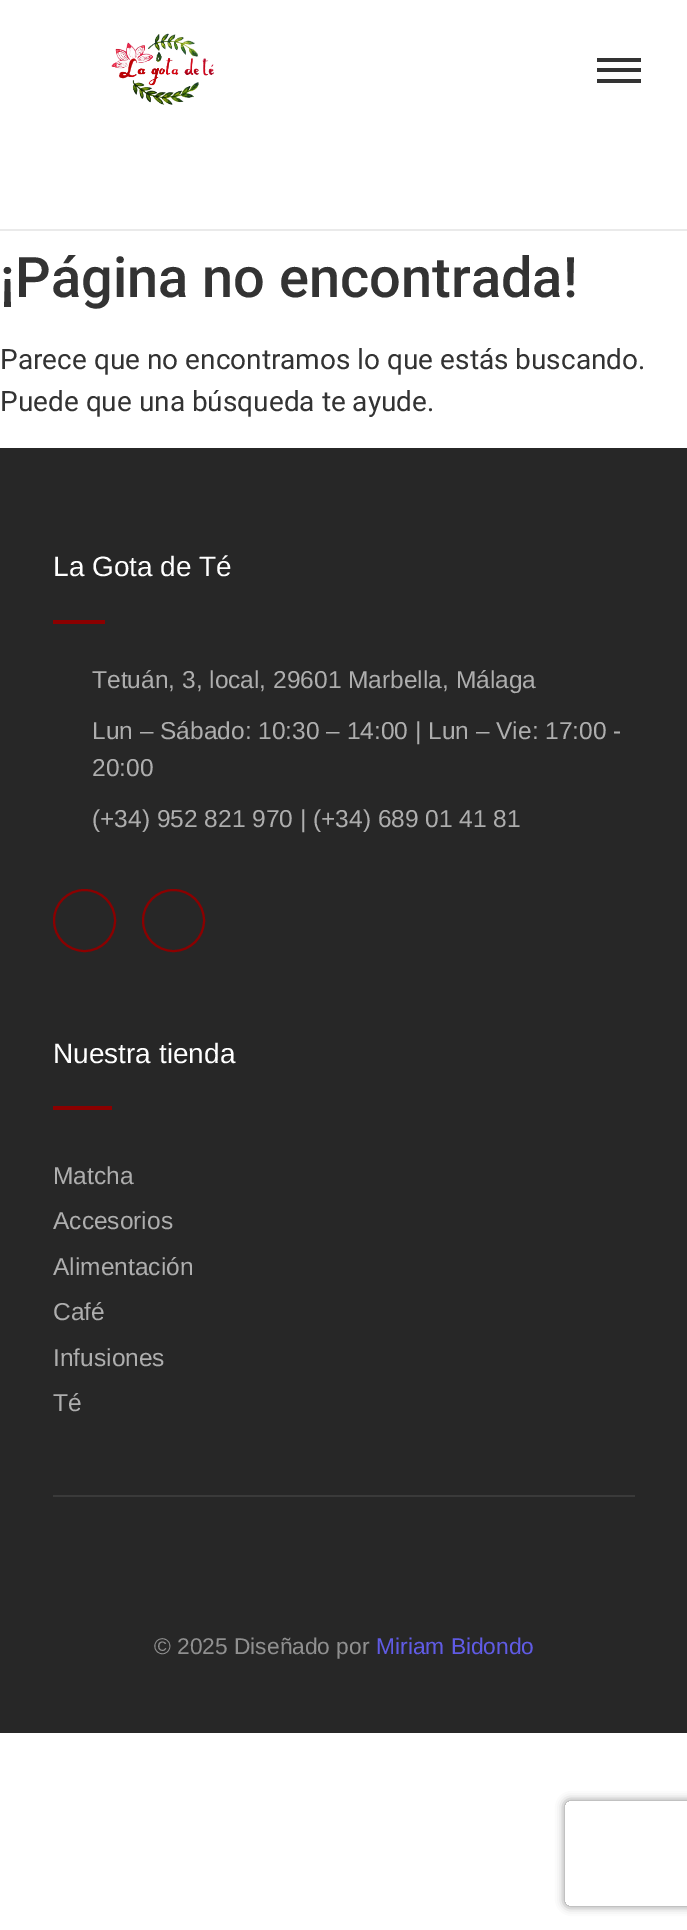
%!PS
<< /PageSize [687 1930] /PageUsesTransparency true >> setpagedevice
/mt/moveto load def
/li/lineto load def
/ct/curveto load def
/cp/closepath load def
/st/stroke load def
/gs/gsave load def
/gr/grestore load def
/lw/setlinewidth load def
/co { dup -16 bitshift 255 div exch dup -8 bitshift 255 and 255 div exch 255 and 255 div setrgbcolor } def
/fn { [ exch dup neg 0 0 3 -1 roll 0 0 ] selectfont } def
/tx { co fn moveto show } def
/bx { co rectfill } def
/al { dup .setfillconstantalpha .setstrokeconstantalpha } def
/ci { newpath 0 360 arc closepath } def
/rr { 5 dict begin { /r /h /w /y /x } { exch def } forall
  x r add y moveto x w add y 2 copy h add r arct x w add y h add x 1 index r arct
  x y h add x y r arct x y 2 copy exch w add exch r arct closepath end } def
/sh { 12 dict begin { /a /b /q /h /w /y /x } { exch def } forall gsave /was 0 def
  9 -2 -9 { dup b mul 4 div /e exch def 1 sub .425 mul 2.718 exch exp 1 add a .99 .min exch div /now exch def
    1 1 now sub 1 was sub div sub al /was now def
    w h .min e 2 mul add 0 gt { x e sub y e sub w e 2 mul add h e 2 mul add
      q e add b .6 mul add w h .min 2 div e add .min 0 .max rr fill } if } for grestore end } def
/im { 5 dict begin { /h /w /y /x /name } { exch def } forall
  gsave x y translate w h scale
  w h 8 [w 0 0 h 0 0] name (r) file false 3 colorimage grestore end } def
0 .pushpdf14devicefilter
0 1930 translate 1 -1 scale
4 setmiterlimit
0 0 687 1930 16#FFFFFF bx
0 229 687 2 16#EAEAEA bx
(media/1.raw) 111 33 104 72 im
597 58 44 4 16#333333 bx
597 68 44 4 16#333333 bx
597 79 44 4 16#333333 bx
0 448 687 1285 16#272727 bx
53 620 52 4 16#8B0000 bx
2 lw
84.5 920.5 30.5 ci st
173.5 920.5 30.5 ci st
53 1106 59 4 16#8B0000 bx
53 1495 582 2 16#3A3A3A bx
gs
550 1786 mt 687 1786 li 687 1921 li 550 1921 li cp 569 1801 mt 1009 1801 li 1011 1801 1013 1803 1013 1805 ct 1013 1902 li 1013 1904 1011 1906 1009 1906 ct 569 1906 li 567 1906 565 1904 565 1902 ct 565 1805 li 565 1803 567 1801 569 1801 ct cp eoclip newpath
16#808080 co
565 1801 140 105 4 4.5 1 sh
gr
(¡Página no encontrada!) 0 297 /Roboto-Medium 56 16#333333 tx
(Parece que no encontramos lo que estás buscando.) 0 369 /Roboto-Regular 28 16#333333 tx
(Puede que una búsqueda te ayude.) 0 411 /Roboto-Regular 28 16#333333 tx
(La Gota de Té) 53 576 /LiberationSans-Regular 28 16#FFFFFF tx
(Tetuán, 3, local, 29601 Marbella, Málaga) 92 688 /LiberationSans-Regular 24.5 16#AEAEAE tx
(Lun – Sábado: 10:30 – 14:00 | Lun – Vie: 17:00 -) 92 739 /LiberationSans-Regular 24.5 16#AEAEAE tx
(20:00) 92 776 /LiberationSans-Regular 24.5 16#AEAEAE tx
(\(+34\) 952 821 970 | \(+34\) 689 01 41 81) 92 827 /LiberationSans-Regular 24.5 16#AEAEAE tx
(Nuestra tienda) 53 1063 /LiberationSans-Regular 28 16#FFFFFF tx
(Matcha) 53 1184 /LiberationSans-Regular 24.5 16#AEAEAE tx
(Accesorios) 53 1229 /LiberationSans-Regular 24.5 16#AEAEAE tx
(Alimentación) 53 1275 /LiberationSans-Regular 24.5 16#AEAEAE tx
(Café) 53 1320 /LiberationSans-Regular 24.5 16#AEAEAE tx
(Infusiones) 53 1366 /LiberationSans-Regular 24.5 16#AEAEAE tx
(Té) 53 1411 /LiberationSans-Regular 24.5 16#AEAEAE tx
(© 2025 Diseñado por) 154 1654 /LiberationSans-Regular 22.75 16#909090 tx
(Miriam Bidondo) 376 1654 /LiberationSans-Regular 22.75 16#605BE5 tx
.poppdf14devicefilter showpage
